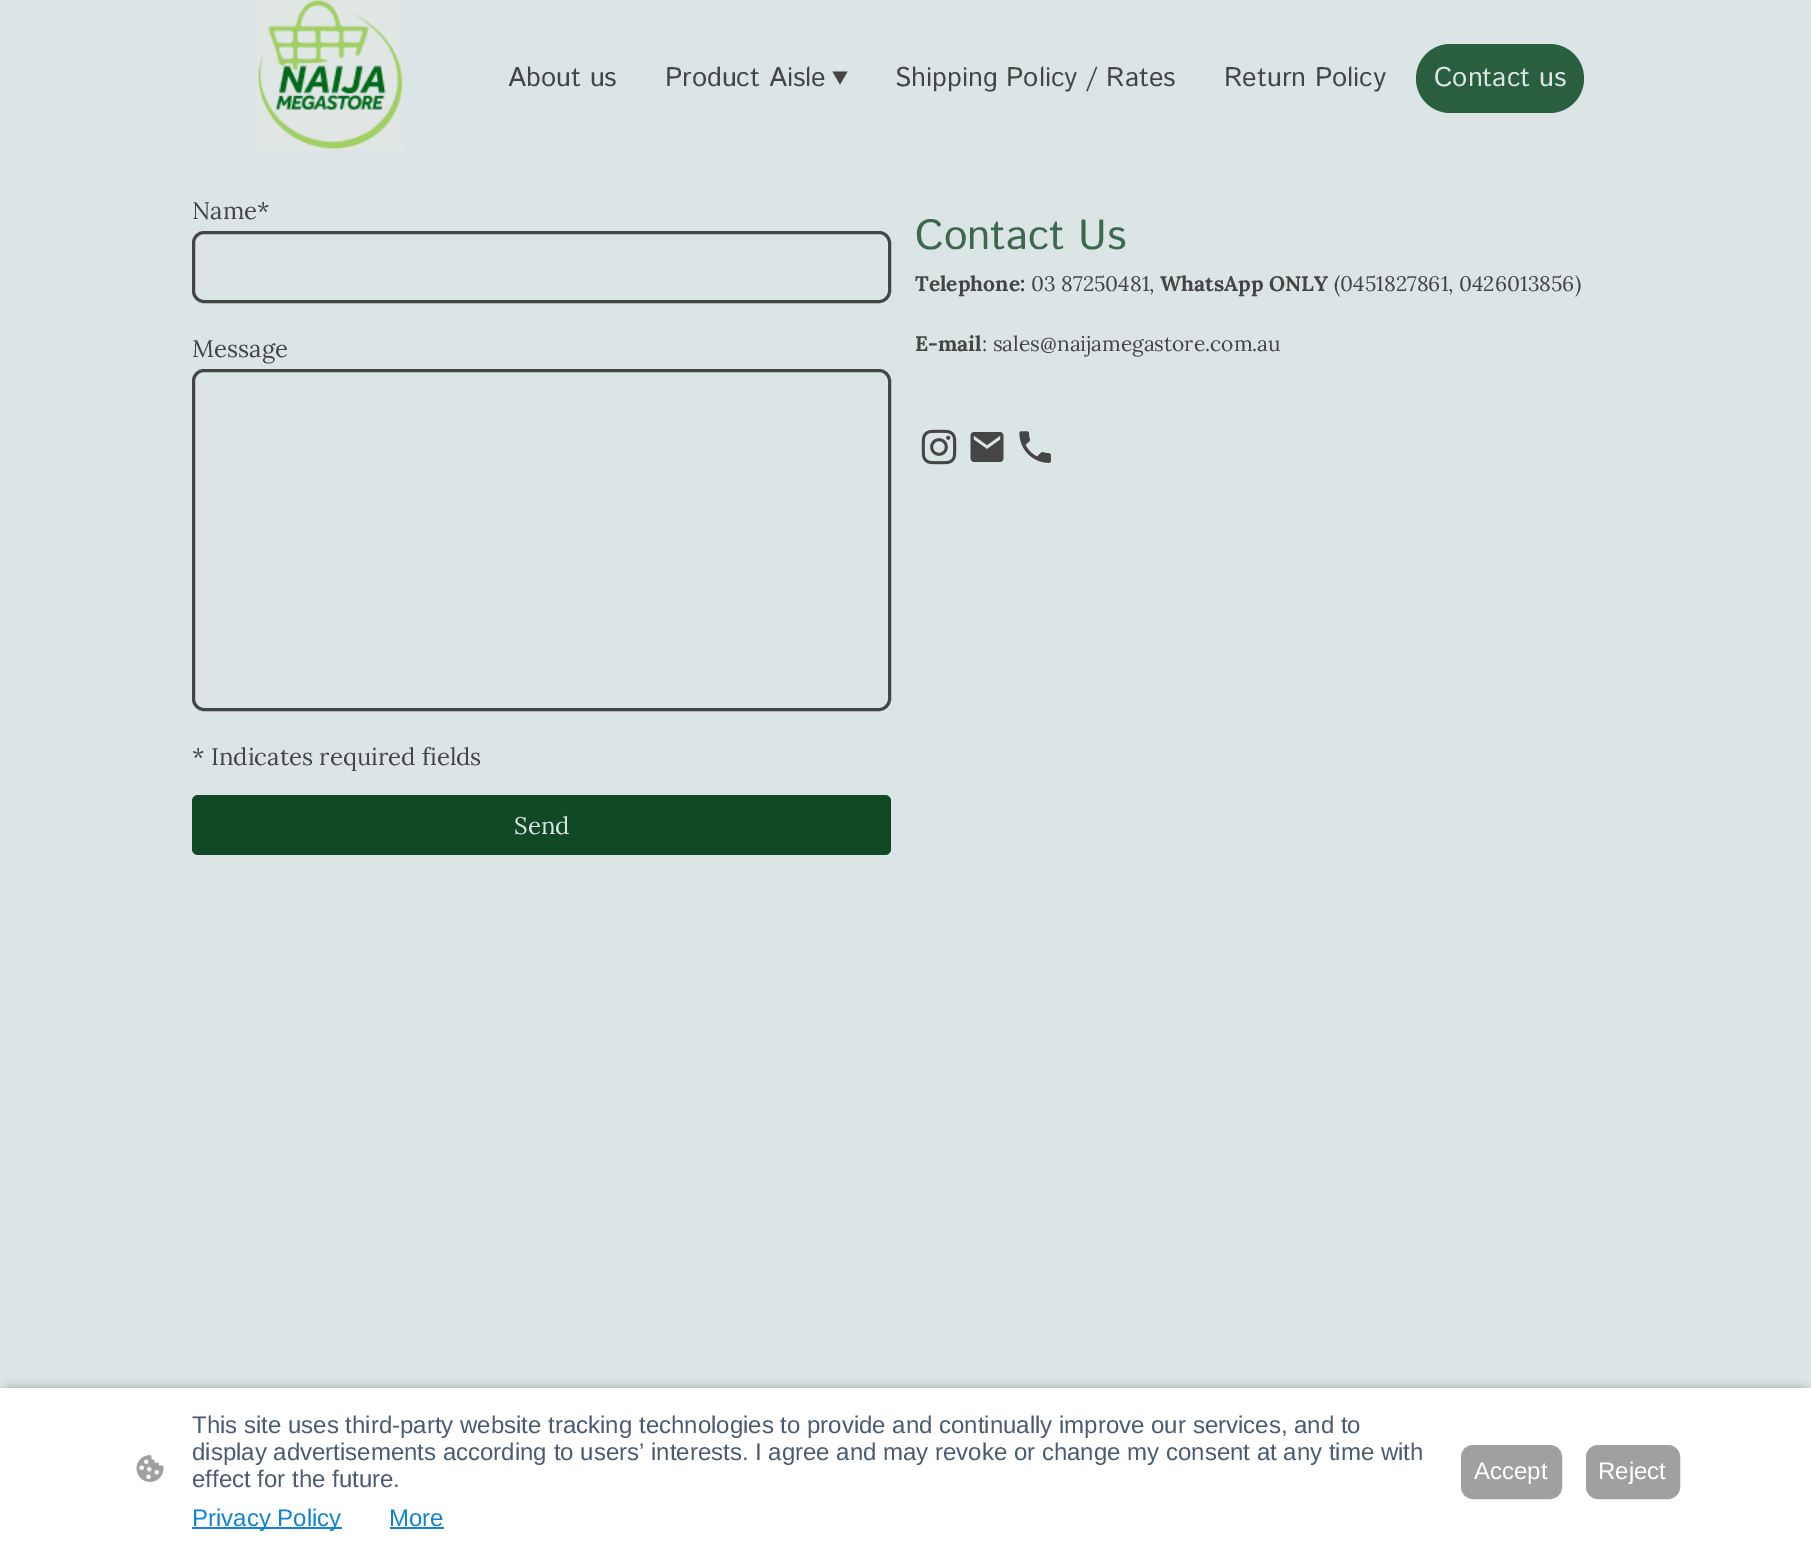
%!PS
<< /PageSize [1811 1555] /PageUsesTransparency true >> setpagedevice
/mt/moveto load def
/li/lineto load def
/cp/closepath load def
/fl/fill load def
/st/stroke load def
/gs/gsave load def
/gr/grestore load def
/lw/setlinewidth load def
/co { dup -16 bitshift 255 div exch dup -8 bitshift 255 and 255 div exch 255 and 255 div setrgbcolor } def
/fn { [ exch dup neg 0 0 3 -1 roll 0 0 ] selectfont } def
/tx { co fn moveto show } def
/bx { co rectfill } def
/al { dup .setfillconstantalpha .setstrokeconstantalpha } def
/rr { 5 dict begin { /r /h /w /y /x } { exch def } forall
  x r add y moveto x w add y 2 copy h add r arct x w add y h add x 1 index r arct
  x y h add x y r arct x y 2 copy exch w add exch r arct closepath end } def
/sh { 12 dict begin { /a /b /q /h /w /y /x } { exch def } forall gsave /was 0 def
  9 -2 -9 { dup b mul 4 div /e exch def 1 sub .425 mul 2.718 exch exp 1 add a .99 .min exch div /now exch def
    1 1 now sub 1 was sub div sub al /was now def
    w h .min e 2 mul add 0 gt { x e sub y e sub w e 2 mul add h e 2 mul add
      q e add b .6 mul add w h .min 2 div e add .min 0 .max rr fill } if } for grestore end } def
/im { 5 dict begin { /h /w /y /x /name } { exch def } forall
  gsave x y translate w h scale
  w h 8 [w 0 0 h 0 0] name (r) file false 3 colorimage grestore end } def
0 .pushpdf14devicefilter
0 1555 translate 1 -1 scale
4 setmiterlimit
0 0 1811 1555 16#DCE5E5 bx
(media/1.raw) 257 0 146 150 im
16#454545 co
847.5 71.5 mt 840 84.5 li 832.5 71.5 li cp fl
16#295F3F co
1416 44 168 69 34.5 rr fl
16#454545 co
3 lw
193.5 232.5 696 69 10.5 rr st
193.5 370.5 696 339 10.5 rr st
16#114927 co
192 795 699 60 6 rr fl
(media/2.raw) 921 429 36 36 im
(media/3.raw) 970 432 34 30 im
(media/4.raw) 1019 431 32 32 im
16#000000 co
9 1392 1794 150 0 6 .63 sh
0 1388 1811 167 16#FFFFFF bx
(media/5.raw) 136 1455 28 27 im
192 1527 150 2 16#1183D1 bx
390 1527 54 2 16#1183D1 bx
16#A0A0A0 co
1462 1446 99 52 11 rr gs fl gr
2 lw
st
1587 1446 92 52 11 rr gs fl gr
st
(About us) 508 86 /IstokWeb-Regular 27 16#454545 tx
(Product Aisle) 665 86 /IstokWeb-Regular 27 16#454545 tx
(Shipping Policy / Rates) 895 86 /IstokWeb-Regular 27 16#454545 tx
(Return Policy) 1224 86 /IstokWeb-Regular 27 16#454545 tx
(Contact us) 1434 86 /IstokWeb-Regular 27 16#DCE5E5 tx
(Name*) 192 219 /Lora-Regular 24 16#454545 tx
(Message) 192 357 /Lora-Regular 24 16#454545 tx
(* Indicates required fields) 192 765 /Lora-Regular 24 16#454545 tx
(Send) 514 834 /Lora-Regular 24 16#DCE5E5 tx
(Contact Us) 915 249 /IstokWeb-Regular 42 16#3D6850 tx
(Telephone:) 915 291 /Lora-Bold 21 16#454545 tx
(03 87250481,) 1031 291 /Lora-Regular 21 16#454545 tx
(WhatsApp ONLY) 1160 291 /Lora-Bold 21 16#454545 tx
(\(0451827861, 0426013856\)) 1334 291 /Lora-Regular 21 16#454545 tx
(E-mail) 915 351 /Lora-Bold 21 16#454545 tx
(: sales@naijamegastore.com.au) 982 351 /Lora-Regular 21 16#454545 tx
(This site uses third-party website tracking technologies to provide and continually improve our services, and to) 192 1433 /LiberationSans-Regular 24 16#4A5A73 tx
(display advertisements according to users’ interests. I agree and may revoke or change my consent at any time with) 192 1460 /LiberationSans-Regular 24 16#4A5A73 tx
(effect for the future.) 192 1487 /LiberationSans-Regular 24 16#4A5A73 tx
(Privacy Policy) 192 1526 /LiberationSans-Regular 24 16#1183D1 tx
(More) 389 1526 /LiberationSans-Regular 24 16#1183D1 tx
(Accept) 1474 1479 /LiberationSans-Regular 24 16#FFFFFF tx
(Reject) 1598 1479 /LiberationSans-Regular 24 16#FFFFFF tx
.poppdf14devicefilter showpage
